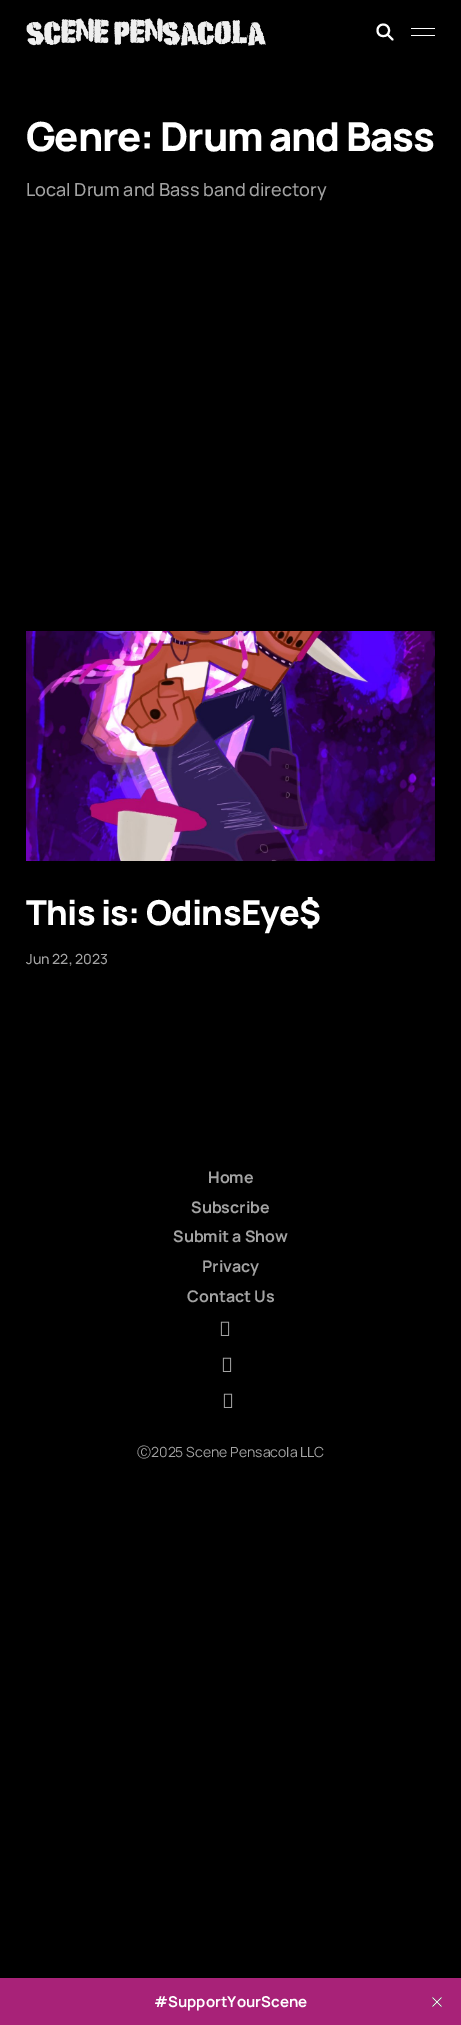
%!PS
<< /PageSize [461 2025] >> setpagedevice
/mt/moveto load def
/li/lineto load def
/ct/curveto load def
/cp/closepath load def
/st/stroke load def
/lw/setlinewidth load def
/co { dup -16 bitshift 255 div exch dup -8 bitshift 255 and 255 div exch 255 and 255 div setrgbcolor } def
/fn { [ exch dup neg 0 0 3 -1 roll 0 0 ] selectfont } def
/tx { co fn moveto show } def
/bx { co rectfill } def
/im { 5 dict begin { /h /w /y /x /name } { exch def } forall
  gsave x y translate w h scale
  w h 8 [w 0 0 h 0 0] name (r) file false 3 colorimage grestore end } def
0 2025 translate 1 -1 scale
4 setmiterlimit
0 0 461 2025 16#000000 bx
(media/1.raw) 26 18 240 28 im
16#FFFFFF co
2 lw
1 setlinecap
1 setlinejoin
392.5 39.5 mt 387.5 34.5 li cp 389 30.5 mt 389 38 377.5 38 377.5 30.5 ct 377.5 22.5 389 22.5 389 30.5 ct cp st
411 28 24 1 16#FFFFFF bx
411 35 24 1 16#FFFFFF bx
(media/2.raw) 26 631 409 230 im
(media/3.raw) 220 1321 10 15 im
(media/3.raw) 222 1357 10 15 im
(media/3.raw) 223 1393 10 15 im
0 1978 461 47 16#A82278 bx
(media/4.raw) 432 1997 10 10 im
/Manrope-ExtraBold 40 fn
16#FFFFFF co
26 151 mt -1.2 0 (Genre: Drum and Bass) ashow
(Local Drum and Bass band directory) 26 196 /Manrope-Medium 18 16#A3A3A3 tx
/Manrope-ExtraBold 34.25 fn
16#FFFFFF co
26 925 mt -.7 0 (This is: OdinsEye$) ashow
(Jun 22, 2023) 26 964 /Manrope-Medium 14 16#A3A3A3 tx
(Home) 208 1183 /Manrope-Bold 16 16#A3A3A3 tx
(Subscribe) 191 1213 /Manrope-Bold 16 16#A3A3A3 tx
(Submit a Show) 173 1242 /Manrope-Bold 16 16#A3A3A3 tx
(Privacy) 202 1272 /Manrope-Bold 16 16#A3A3A3 tx
(Contact Us) 187 1302 /Manrope-Bold 16 16#A3A3A3 tx
(Ⓒ) 137 1457 /WenQuanYiZenHei-Medium 14 16#A3A3A3 tx
(2025 Scene Pensacola LLC) 151 1457 /Manrope-Regular 14 16#A3A3A3 tx
(#SupportYourScene) 154 2007 /Manrope-Bold 15 16#FFFFFF tx
showpage
